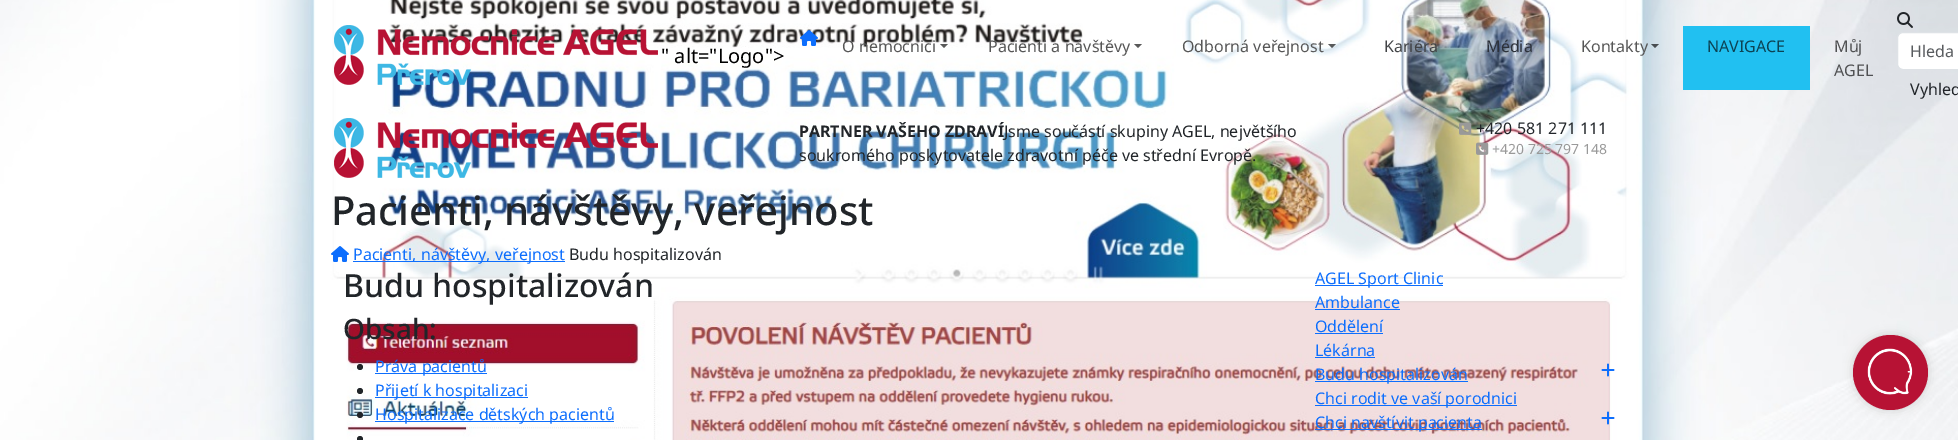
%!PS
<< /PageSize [1958 440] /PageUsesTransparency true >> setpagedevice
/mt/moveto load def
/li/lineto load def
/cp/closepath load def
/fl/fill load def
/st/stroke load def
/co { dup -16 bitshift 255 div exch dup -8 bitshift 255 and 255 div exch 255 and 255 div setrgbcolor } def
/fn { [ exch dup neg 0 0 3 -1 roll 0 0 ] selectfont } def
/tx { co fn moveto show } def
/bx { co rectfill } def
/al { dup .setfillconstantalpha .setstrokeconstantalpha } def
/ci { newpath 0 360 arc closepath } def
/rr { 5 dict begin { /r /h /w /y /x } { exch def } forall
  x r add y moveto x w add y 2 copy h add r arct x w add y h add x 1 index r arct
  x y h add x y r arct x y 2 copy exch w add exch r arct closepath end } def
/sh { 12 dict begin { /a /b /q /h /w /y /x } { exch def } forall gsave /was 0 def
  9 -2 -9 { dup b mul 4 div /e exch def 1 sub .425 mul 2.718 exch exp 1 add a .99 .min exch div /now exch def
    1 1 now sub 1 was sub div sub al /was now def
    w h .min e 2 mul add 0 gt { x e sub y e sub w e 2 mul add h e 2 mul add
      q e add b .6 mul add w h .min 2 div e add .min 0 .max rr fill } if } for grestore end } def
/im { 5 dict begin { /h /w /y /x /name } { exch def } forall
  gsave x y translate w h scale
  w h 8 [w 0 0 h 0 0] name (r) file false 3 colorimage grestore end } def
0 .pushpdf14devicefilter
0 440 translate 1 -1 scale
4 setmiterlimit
0 0 1958 440 16#FFFFFF bx
(media/1.raw) 0 0 1958 440 im
(media/2.raw) 334 25 324 60 im
(media/3.raw) 800 30 18 16 im
16#595959 co
940 44 mt 948 44 li 944 48 li cp fl
1134 44 mt 1142 44 li 1138 48 li cp fl
0.65 al
16#000000 co
1328 44 mt 1336 44 li 1332 48 li cp fl
1651 44 mt 1659 44 li 1655 48 li cp fl
1 al
1683 26 127 64 16#21C0F1 bx
(media/4.raw) 1897 12 16 16 im
16#FFFFFF co
1898 33 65 36 5 rr fl
16#DEE2E6 co
1897.5 32.5 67 37 5.5 rr st
(media/5.raw) 334 118 324 60 im
(media/6.raw) 1459 122 13 13 im
(media/7.raw) 1476 142 13 13 im
(media/8.raw) 331 246 18 16 im
353 261 212 1 16#0D6EFD bx
16#212529 co
360 367 3 ci fl
375 373 112 1 16#0D6EFD bx
16#212529 co
360 391 3 ci fl
375 397 153 1 16#0D6EFD bx
16#212529 co
360 415 3 ci fl
375 421 239 1 16#0D6EFD bx
16#212529 co
360 439 3 ci fl
1315 285 128 1 16#0D6EFD bx
1315 309 85 1 16#0D6EFD bx
1315 333 68 1 16#0D6EFD bx
1315 357 60 1 16#0D6EFD bx
1315 381 153 1 16#0D6EFD bx
(media/9.raw) 1601 363 14 14 im
1315 405 202 1 16#0D6EFD bx
1315 429 167 1 16#0D6EFD bx
(media/9.raw) 1601 411 14 14 im
16#A7A7A7 co
1853 335 75 75 37.5 5 .5 sh
16#B71234 co
1890.5 372.5 37.5 ci fl
(media/10.raw) 1867 348 46 47 im
(" alt="Logo">) 661 63 /NotoSans-Regular 20 16#000000 tx
(O nemocnici) 842 52 /NotoSans-Regular 16 16#565656 tx
(Pacienti a návštěvy) 988 52 /NotoSans-Regular 16 16#565656 tx
(Odborná veřejnost) 1182 52 /NotoSans-Regular 16 16#565656 tx
(Kariéra) 1384 52 /NotoSans-Regular 16 16#414346 tx
(Média) 1486 52 /NotoSans-Regular 16 16#2D323B tx
(Kontakty) 1581 52 /NotoSans-Regular 16 16#565656 tx
(NAVIGACE) 1707 52 /NotoSans-Regular 16 16#0C4354 tx
(Můj) 1834 52 /NotoSans-Regular 16 16#505153 tx
(AGEL) 1834 76 /NotoSans-Regular 16 16#505153 tx
(Hleda) 1910 57 /NotoSans-Regular 16 16#595C5F tx
(Vyhled) 1910 95 /NotoSans-Regular 16 16#212529 tx
(PARTNER VAŠEHO ZDRAVÍ) 799 137 /NotoSans-Bold 16 16#212529 tx
(Jsme součástí skupiny AGEL, největšího) 1004 137 /NotoSans-Regular 16 16#212529 tx
(soukromého poskytovatele zdravotní péče ve střední Evropě.) 799 161 /NotoSans-Regular 16 16#212529 tx
(+420 581 271 111) 1476 134 /NotoSans-Regular 16 16#212529 tx
(+420 725 797 148) 1492 154 /NotoSans-Regular 14 16#999999 tx
(Pacienti, návštěvy, veřejnost) 331 225 /NotoSans-Medium 40 16#212529 tx
(Pacienti, návštěvy, veřejnost) 353 260 /NotoSans-Regular 16 16#0D6EFD tx
(Budu hospitalizován) 569 260 /NotoSans-Regular 16 16#212529 tx
(Budu hospitalizován) 343 297 /NotoSans-Medium 32 16#212529 tx
(Obsah:) 343 339 /NotoSans-Medium 28 16#212529 tx
(Práva pacientů) 375 372 /NotoSans-Regular 16 16#0D6EFD tx
(Přijetí k hospitalizaci) 375 396 /NotoSans-Regular 16 16#0D6EFD tx
(Hospitalizace dětských pacientů) 375 420 /NotoSans-Regular 16 16#0D6EFD tx
(AGEL Sport Clinic) 1315 284 /NotoSans-Regular 16 16#0D6EFD tx
(Ambulance) 1315 308 /NotoSans-Regular 16 16#0D6EFD tx
(Oddělení) 1315 332 /NotoSans-Regular 16 16#0D6EFD tx
(Lékárna) 1315 356 /NotoSans-Regular 16 16#0D6EFD tx
(Budu hospitalizován) 1315 380 /NotoSans-Regular 16 16#0D6EFD tx
(Chci rodit ve vaší porodnici) 1315 404 /NotoSans-Regular 16 16#0D6EFD tx
(Chci navštívit pacienta) 1315 428 /NotoSans-Regular 16 16#0D6EFD tx
.poppdf14devicefilter showpage
